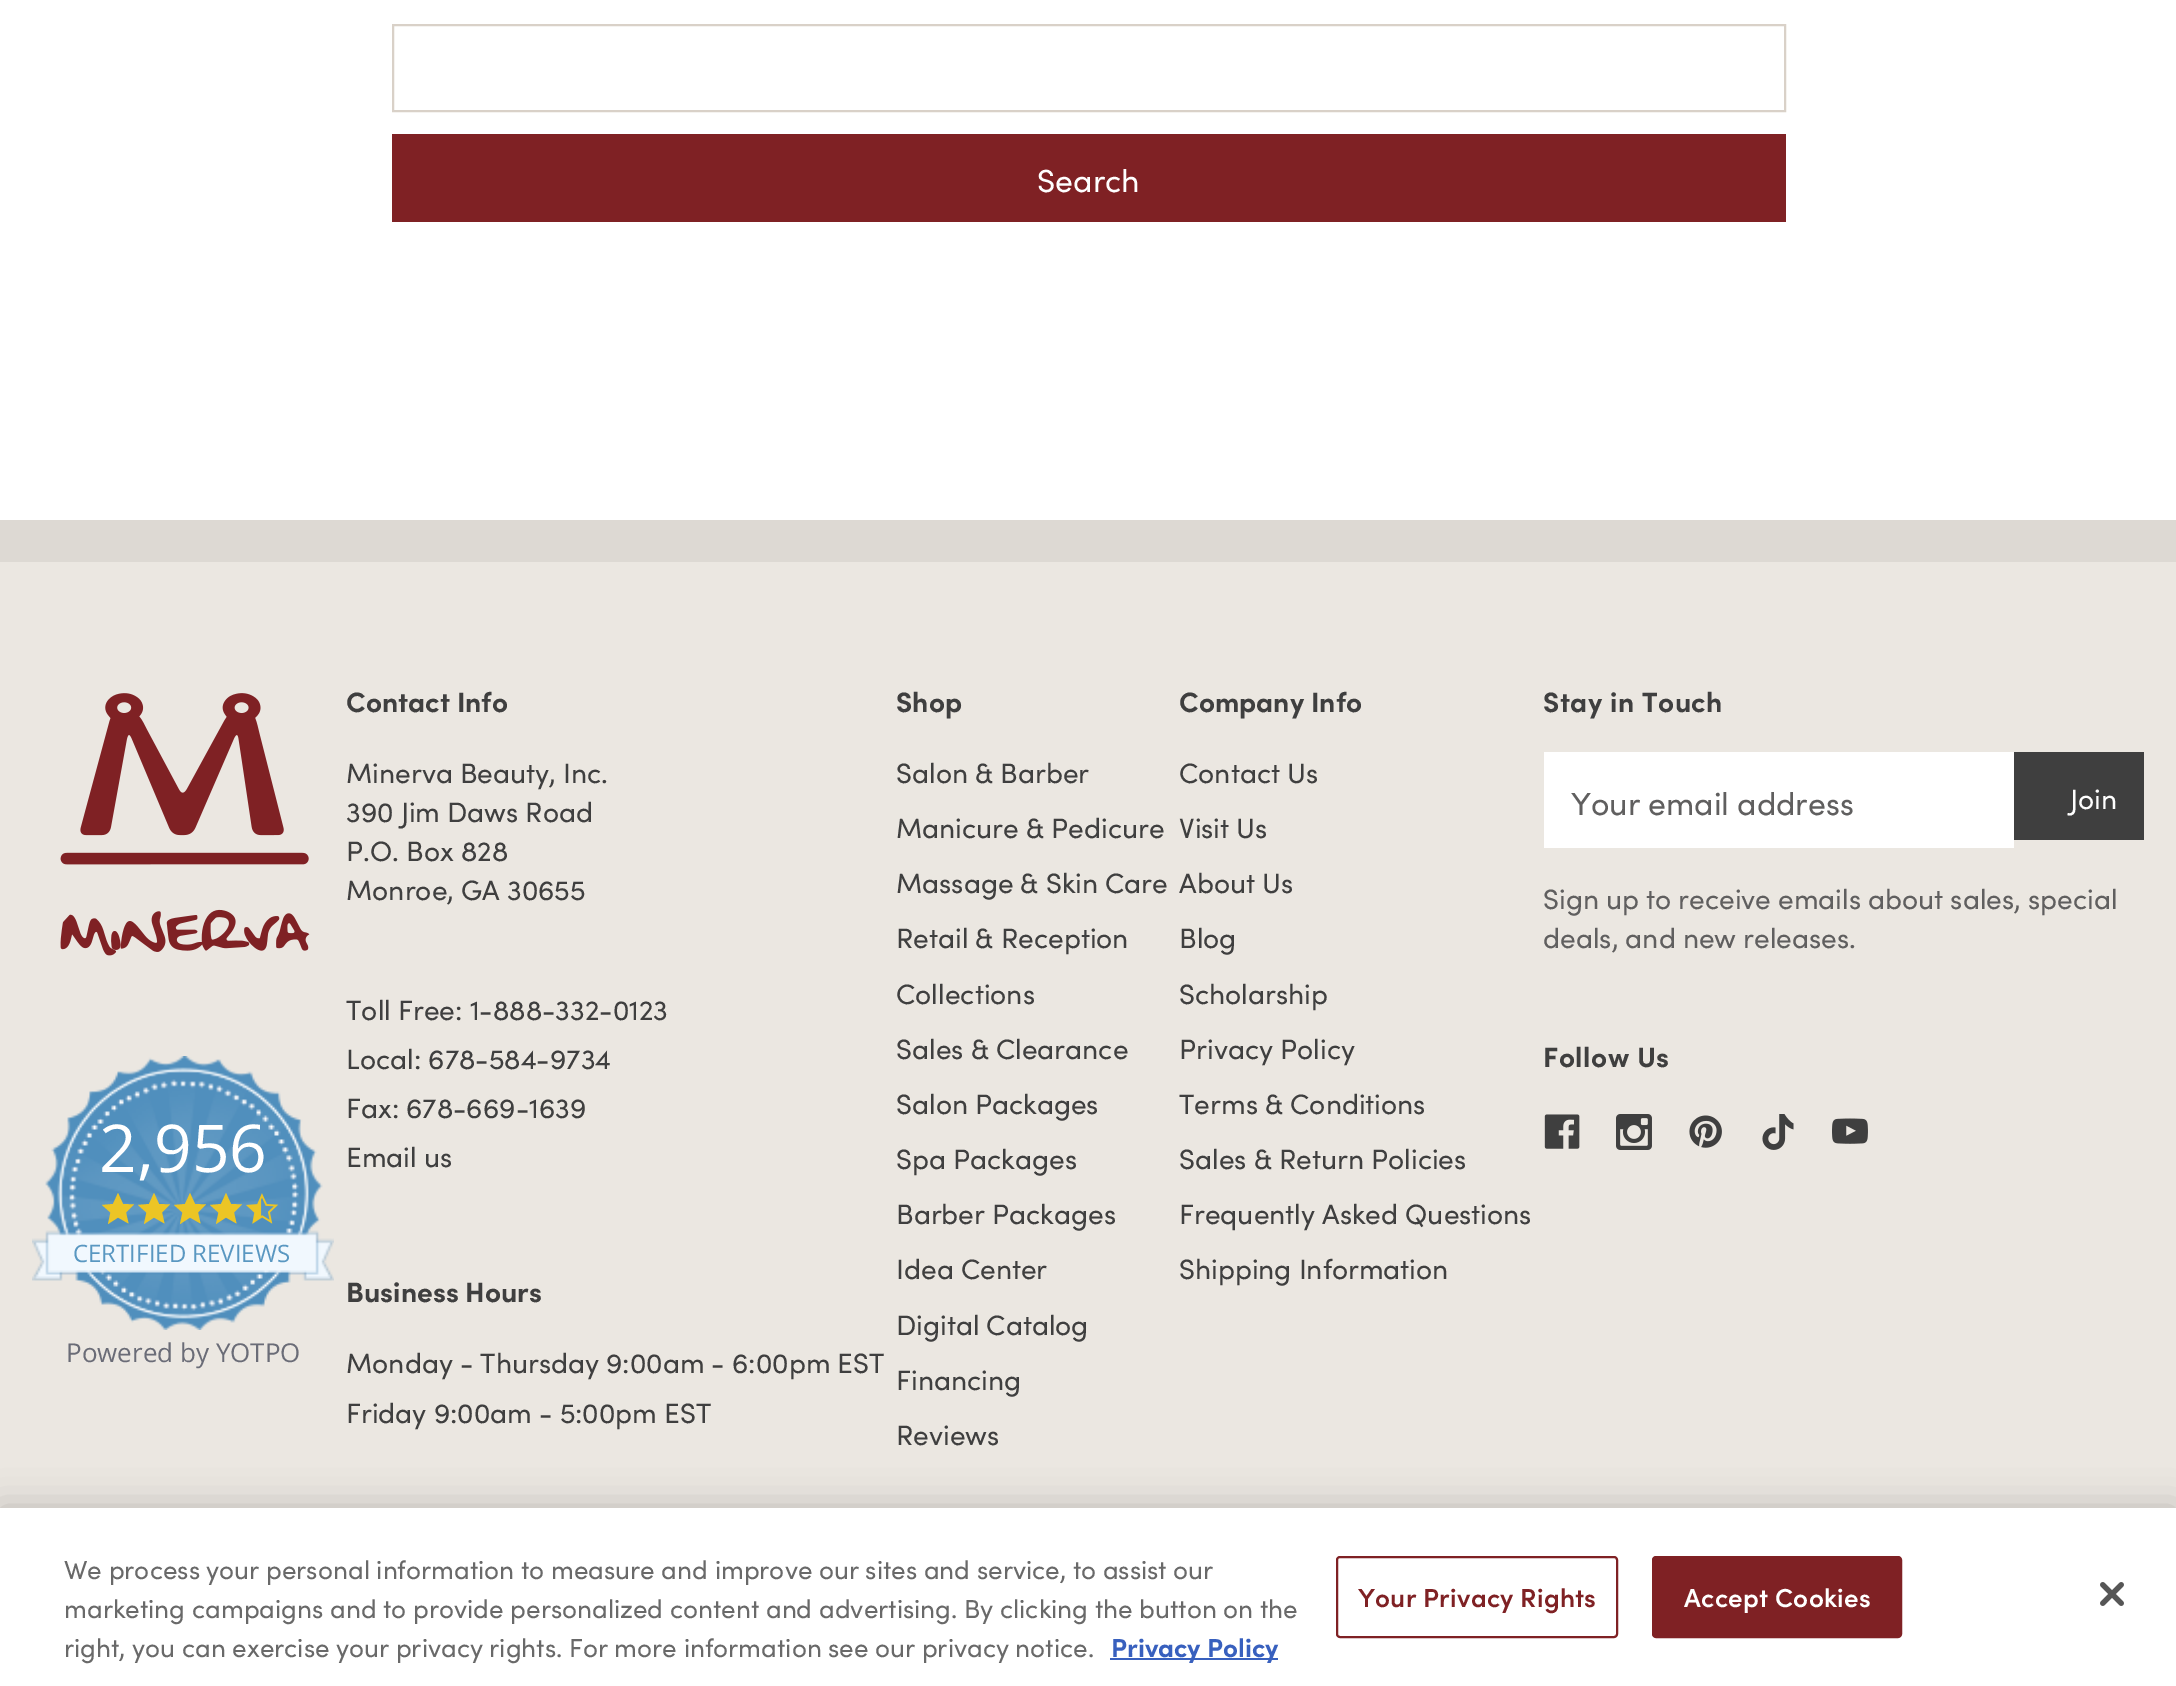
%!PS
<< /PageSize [2176 1686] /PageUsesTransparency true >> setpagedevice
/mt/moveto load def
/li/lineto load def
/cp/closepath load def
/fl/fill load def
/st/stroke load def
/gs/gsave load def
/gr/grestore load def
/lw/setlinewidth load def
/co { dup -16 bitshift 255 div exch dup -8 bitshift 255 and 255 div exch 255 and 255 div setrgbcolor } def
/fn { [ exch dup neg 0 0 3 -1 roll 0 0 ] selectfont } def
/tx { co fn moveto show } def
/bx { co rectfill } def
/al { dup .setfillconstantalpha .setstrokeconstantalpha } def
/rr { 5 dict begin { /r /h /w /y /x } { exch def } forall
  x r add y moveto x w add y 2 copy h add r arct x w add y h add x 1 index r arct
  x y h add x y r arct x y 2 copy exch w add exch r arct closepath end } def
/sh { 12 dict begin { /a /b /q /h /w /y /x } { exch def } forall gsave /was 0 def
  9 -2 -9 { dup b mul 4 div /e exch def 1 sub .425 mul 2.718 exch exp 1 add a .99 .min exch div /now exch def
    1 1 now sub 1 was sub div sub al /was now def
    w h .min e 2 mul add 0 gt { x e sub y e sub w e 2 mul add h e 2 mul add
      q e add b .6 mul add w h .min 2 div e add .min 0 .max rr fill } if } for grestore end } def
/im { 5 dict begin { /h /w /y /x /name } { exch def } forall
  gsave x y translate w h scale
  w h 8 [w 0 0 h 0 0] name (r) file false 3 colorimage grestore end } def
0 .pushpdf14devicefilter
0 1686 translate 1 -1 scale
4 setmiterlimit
0 0 2176 1686 16#FFFFFF bx
16#D9D1C8 co
2 lw
393 25 1392 86 rectstroke
392 134 1394 88 16#7F2124 bx
0 520 2176 42 16#DDD9D3 bx
0 562 2176 946 16#EBE7E1 bx
1544 752 470 96 16#FFFFFF bx
2014 752 130 88 16#3F3F3F bx
(media/1.raw) 1544 1114 36 35 im
(media/2.raw) 1616 1114 36 36 im
(media/3.raw) 1689 1115 33 33 im
(media/4.raw) 1762 1114 32 36 im
(media/5.raw) 1832 1118 36 26 im
(media/6.raw) 60 693 250 263 im
(media/7.raw) 32 1056 302 274 im
16#ECC525 co
128.5 1223.5 mt 118 1217.5 li 108 1224 li 110.5 1212.5 li 102 1205 li 113 1204 li 118 1193 li 123 1204 li 134 1204.5 li 126 1212.5 li cp fl
164.5 1223.5 mt 154 1217.5 li 144 1224 li 146.5 1212.5 li 138 1205 li 149 1204 li 154 1193 li 159 1204 li 170 1204.5 li 162 1212.5 li cp fl
200.5 1223.5 mt 190 1217.5 li 180 1224 li 182.5 1212.5 li 174 1205 li 185 1204 li 190 1193 li 195 1204 li 206 1204.5 li 198 1212.5 li cp fl
236.5 1223.5 mt 226 1217.5 li 216 1224 li 218.5 1212.5 li 210 1205 li 221 1204 li 226 1193 li 231 1204 li 242 1204.5 li 234 1212.5 li cp fl
(media/8.raw) 246 1193 33 31 im
16#000000 co
0 1508 2176 178 0 18 .2 sh
0 1508 2176 178 16#FFFFFF bx
1110 1658 168 2 16#3860BE bx
16#7F2124 co
1337 1557 280 80 3 rr st
1653 1557 248 80 3 rr gs fl gr
st
(media/9.raw) 2100 1582 24 24 im
(Search) 1037 192 /Sofia-Regular 32 16#FFFFFF tx
(Contact Info) 346 712 /Sofia-Bold 28 16#3F3F3F tx
(Minerva Beauty, Inc.) 346 783 /Sofia-Regular 28 16#3F3F3F tx
(390 Jim Daws Road) 346 822 /Sofia-Regular 28 16#3F3F3F tx
(P.O. Box 828) 346 861 /Sofia-Regular 28 16#3F3F3F tx
(Monroe, GA 30655) 346 900 /Sofia-Regular 28 16#3F3F3F tx
(Toll Free: 1-888-332-0123) 346 1020 /Sofia-Regular 28 16#3F3F3F tx
(Local: 678-584-9734) 346 1069 /Sofia-Regular 28 16#3F3F3F tx
(Fax: 678-669-1639) 346 1118 /Sofia-Regular 28 16#3F3F3F tx
(Email us) 346 1167 /Sofia-Regular 28 16#3F3F3F tx
(Business Hours) 346 1302 /Sofia-Bold 28 16#3F3F3F tx
(Monday - Thursday 9:00am - 6:00pm EST) 346 1373 /Sofia-Regular 28 16#3F3F3F tx
(Friday 9:00am - 5:00pm EST) 346 1423 /Sofia-Regular 28 16#3F3F3F tx
(Shop) 896 712 /Sofia-Bold 28 16#3F3F3F tx
(Salon & Barber) 896 783 /Sofia-Regular 28 16#3F3F3F tx
(Manicure & Pedicure) 896 838 /Sofia-Regular 28 16#3F3F3F tx
(Massage & Skin Care) 896 893 /Sofia-Regular 28 16#3F3F3F tx
(Retail & Reception) 896 948 /Sofia-Regular 28 16#3F3F3F tx
(Collections) 896 1004 /Sofia-Regular 28 16#3F3F3F tx
(Sales & Clearance) 896 1059 /Sofia-Regular 28 16#3F3F3F tx
(Salon Packages) 896 1114 /Sofia-Regular 28 16#3F3F3F tx
(Spa Packages) 896 1169 /Sofia-Regular 28 16#3F3F3F tx
(Barber Packages) 896 1224 /Sofia-Regular 28 16#3F3F3F tx
(Idea Center) 896 1279 /Sofia-Regular 28 16#3F3F3F tx
(Digital Catalog) 896 1335 /Sofia-Regular 28 16#3F3F3F tx
(Financing) 896 1390 /Sofia-Regular 28 16#3F3F3F tx
(Reviews) 896 1445 /Sofia-Regular 28 16#3F3F3F tx
(Company Info) 1179 712 /Sofia-Bold 28 16#3F3F3F tx
(Contact Us) 1179 783 /Sofia-Regular 28 16#3F3F3F tx
(Visit Us) 1179 838 /Sofia-Regular 28 16#3F3F3F tx
(About Us) 1179 893 /Sofia-Regular 28 16#3F3F3F tx
(Blog) 1179 948 /Sofia-Regular 28 16#3F3F3F tx
(Scholarship) 1179 1004 /Sofia-Regular 28 16#3F3F3F tx
(Privacy Policy) 1179 1059 /Sofia-Regular 28 16#3F3F3F tx
(Terms & Conditions) 1179 1114 /Sofia-Regular 28 16#3F3F3F tx
(Sales & Return Policies) 1179 1169 /Sofia-Regular 28 16#3F3F3F tx
(Frequently Asked Questions) 1179 1224 /Sofia-Regular 28 16#3F3F3F tx
(Shipping Information) 1179 1279 /Sofia-Regular 28 16#3F3F3F tx
/Sofia-Bold 28 fn
1543 712 mt .5 0 (Stay in Touch) ashow
(Your email address) 1571 815 /Sofia-Regular 32 16#605F5F tx
(Join) 2070 809 /Sofia-Regular 28 16#FFFFFF tx
(Sign up to receive emails about sales, special) 1543 909 /Sofia-Regular 28 16#605F5F tx
(deals, and new releases.) 1543 948 /Sofia-Regular 28 16#605F5F tx
/Sofia-Bold 28 fn
16#3F3F3F co
1543 1067 mt .5 0 (Follow Us) ashow
(2,956) 99 1172 /OpenSans-Regular 66 16#FFFFFF tx
(CERTIFIED REVIEWS) 73 1262 /OpenSans-Regular 24 16#5997C1 tx
(Powered by YOTPO) 66 1362 /OpenSans-Regular 26 16#6A6C77 tx
(We process your personal information to measure and improve our sites and service, to assist our) 64 1579 /Sofia-Regular 26 16#696969 tx
(marketing campaigns and to provide personalized content and advertising. By clicking the button on the) 64 1618 /Sofia-Regular 26 16#696969 tx
(right, you can exercise your privacy rights. For more information see our privacy notice.) 64 1657 /Sofia-Regular 26 16#696969 tx
(Privacy Policy) 1111 1657 /Sofia-Bold 26 16#3860BE tx
/Sofia-SemiBold 26 fn
16#7F2124 co
1358 1607 mt .25 0 (Your Privacy Rights) ashow
16#FFFFFF co
1684 1607 mt .25 0 (Accept Cookies) ashow
.poppdf14devicefilter showpage
